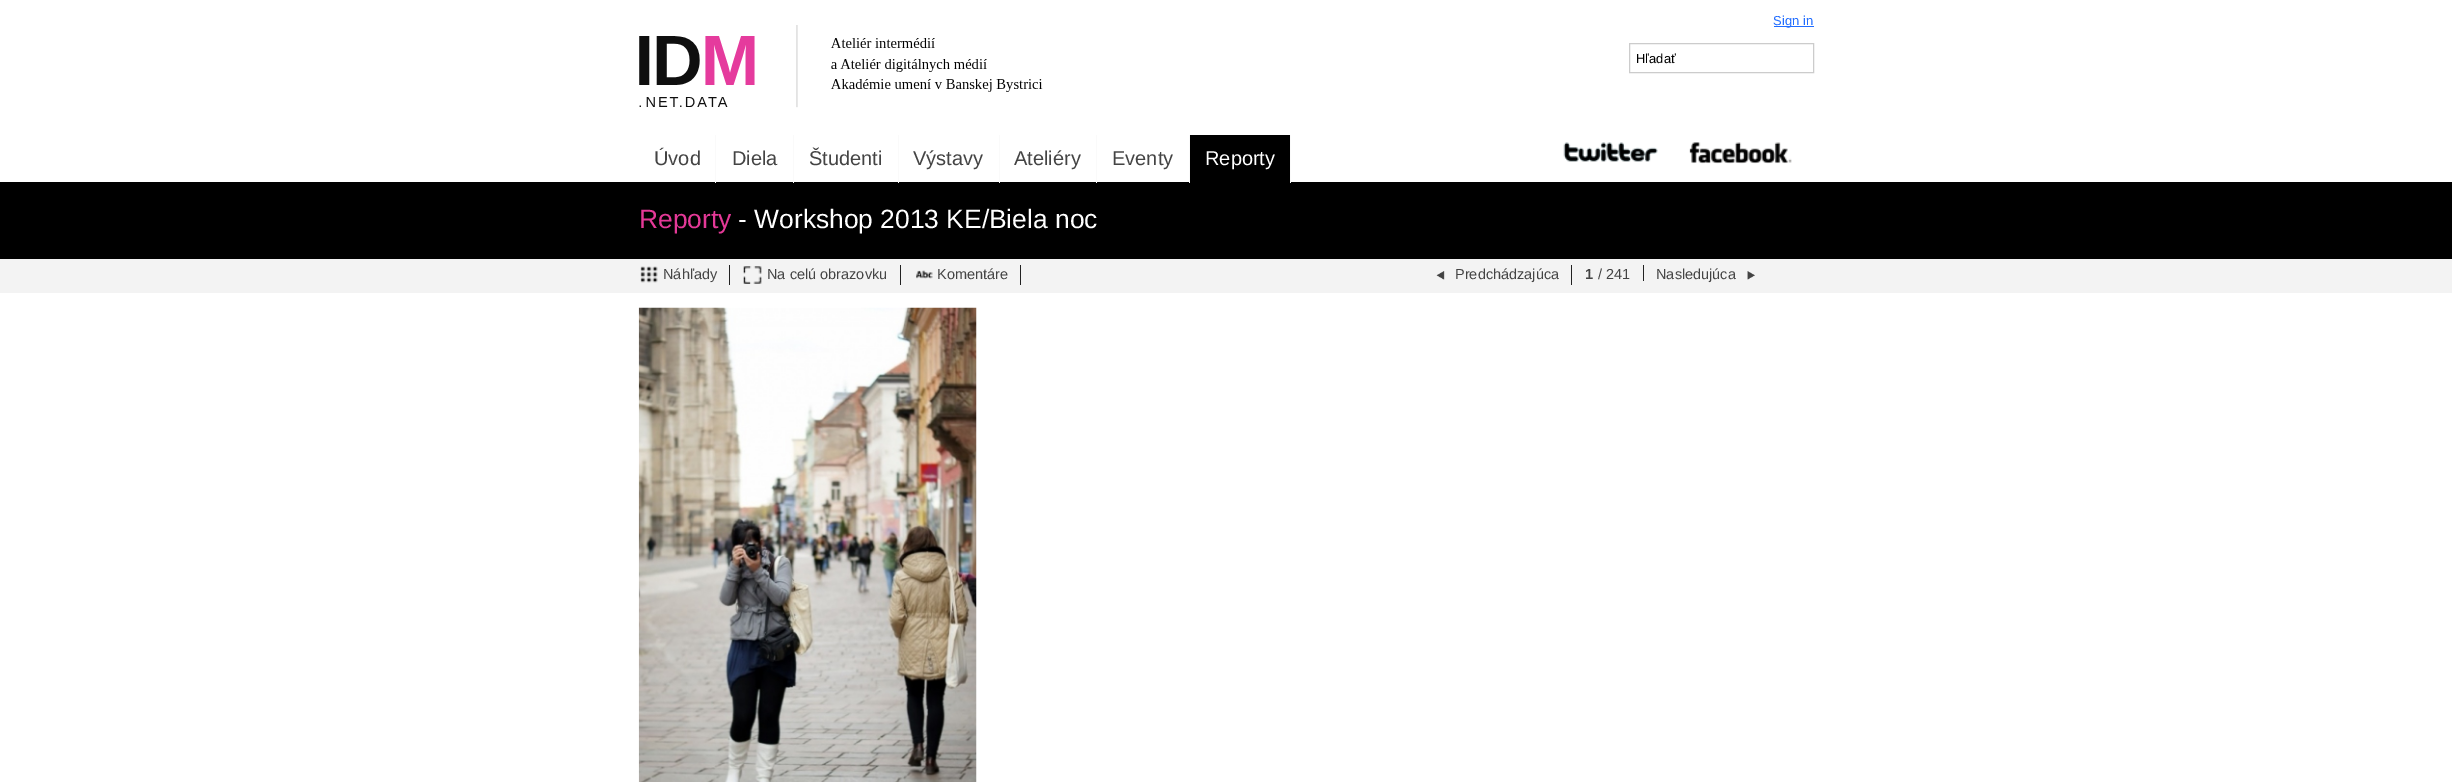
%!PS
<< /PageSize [2452 782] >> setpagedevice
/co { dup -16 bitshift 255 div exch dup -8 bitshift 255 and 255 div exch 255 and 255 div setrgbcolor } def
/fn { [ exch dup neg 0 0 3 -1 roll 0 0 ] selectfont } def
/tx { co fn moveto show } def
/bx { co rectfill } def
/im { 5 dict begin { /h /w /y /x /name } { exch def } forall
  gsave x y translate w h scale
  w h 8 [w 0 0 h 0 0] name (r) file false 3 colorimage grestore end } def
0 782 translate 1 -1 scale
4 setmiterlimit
0 0 2452 782 16#FFFFFF bx
(media/1.raw) 639 25 404 83 im
1774 26 40 1 16#206CFF bx
16#CCCCCC co
1629.5 43.5 184 29 rectstroke
0 182 2452 77 16#000000 bx
715 135 1 48 16#FAFAFA bx
793 135 1 48 16#FAFAFA bx
898 135 1 48 16#FAFAFA bx
999 135 1 48 16#FAFAFA bx
1096 135 1 48 16#FAFAFA bx
1189 135 1 48 16#FAFAFA bx
1190 135 100 47 16#000000 bx
1290 135 1 48 16#FAFAFA bx
(media/2.raw) 1563 142 95 20 im
(media/3.raw) 1689 142 103 22 im
0 259 2452 34 16#F3F3F3 bx
729 265 1 20 16#222222 bx
(media/4.raw) 640 266 18 17 im
900 265 1 20 16#222222 bx
(media/5.raw) 743 266 19 18 im
1020 265 1 20 16#222222 bx
(media/6.raw) 916 270 17 9 im
1571 265 1 20 16#222222 bx
(media/7.raw) 1436 271 9 9 im
1643 265 1 16 16#222222 bx
(media/8.raw) 1747 271 8 9 im
(media/9.raw) 638 307 339 475 im
(Sign in) 1773 25 /LiberationSans-Regular 13 16#206CFF tx
(Hľadať) 1636 63 /LiberationSans-Regular 13 16#000000 tx
(Úvod) 654 165 /LiberationSans-Regular 20 16#444444 tx
(Diela) 732 165 /LiberationSans-Regular 20 16#444444 tx
(Študenti) 809 165 /LiberationSans-Regular 20 16#444444 tx
(Výstavy) 913 165 /LiberationSans-Regular 20 16#444444 tx
(Ateliéry) 1014 165 /LiberationSans-Regular 20 16#444444 tx
(Eventy) 1112 165 /LiberationSans-Regular 20 16#444444 tx
(Reporty) 1205 165 /LiberationSans-Regular 20 16#FFFFFF tx
(Reporty) 639 228 /LiberationSans-Regular 26.4 16#E43997 tx
(- Workshop 2013 KE/Biela noc) 738 228 /LiberationSans-Regular 26.4 16#FFFFFF tx
(Náhľady) 663 279 /LiberationSans-Regular 14.5 16#444444 tx
(Na celú obrazovku) 767 279 /LiberationSans-Regular 14.5 16#444444 tx
(Komentáre) 937 279 /LiberationSans-Regular 14.5 16#444444 tx
(Predchádzajúca) 1455 279 /LiberationSans-Regular 14.5 16#444444 tx
(1) 1585 279 /LiberationSans-Bold 14.5 16#444444 tx
(/ 241) 1598 279 /LiberationSans-Regular 14.5 16#444444 tx
(Nasledujúca) 1656 279 /LiberationSans-Regular 14.5 16#444444 tx
showpage
